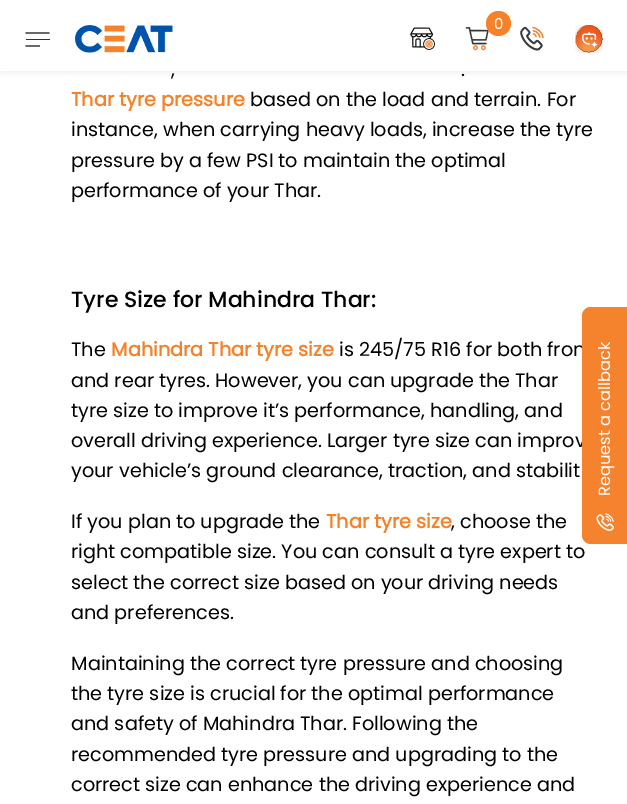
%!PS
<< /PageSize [627 804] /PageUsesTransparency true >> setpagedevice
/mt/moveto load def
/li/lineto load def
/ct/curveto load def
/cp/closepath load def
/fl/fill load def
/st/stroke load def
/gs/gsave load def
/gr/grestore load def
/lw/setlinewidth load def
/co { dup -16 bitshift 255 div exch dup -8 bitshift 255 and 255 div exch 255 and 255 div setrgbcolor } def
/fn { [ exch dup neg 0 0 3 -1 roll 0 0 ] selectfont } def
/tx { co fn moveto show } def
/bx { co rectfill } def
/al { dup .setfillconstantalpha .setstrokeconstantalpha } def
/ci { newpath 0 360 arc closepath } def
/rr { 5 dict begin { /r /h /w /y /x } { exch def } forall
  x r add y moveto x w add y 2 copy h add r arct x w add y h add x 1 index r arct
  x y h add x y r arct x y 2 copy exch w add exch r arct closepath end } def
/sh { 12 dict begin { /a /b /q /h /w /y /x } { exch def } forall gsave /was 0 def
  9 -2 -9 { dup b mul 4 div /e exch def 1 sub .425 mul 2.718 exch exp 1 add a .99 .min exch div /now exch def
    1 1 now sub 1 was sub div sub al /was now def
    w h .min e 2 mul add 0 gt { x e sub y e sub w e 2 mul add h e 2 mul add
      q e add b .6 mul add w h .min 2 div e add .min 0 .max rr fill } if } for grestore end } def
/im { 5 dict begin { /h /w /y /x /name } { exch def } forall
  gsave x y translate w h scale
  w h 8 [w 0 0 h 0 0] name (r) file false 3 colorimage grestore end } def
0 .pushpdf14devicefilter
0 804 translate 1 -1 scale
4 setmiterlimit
0 0 627 804 16#FFFFFF bx
16#8F8F8F co
0 3 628 71 0 2.5 .13 sh
0 1 627 70 16#FFFFFF bx
(media/1.raw) 465 27 24 24 im
16#F58228 co
498.5 23.5 12.5 ci fl
(media/2.raw) 410 27 25 23 im
(media/3.raw) 520 26 24 25 im
(media/4.raw) 575 25 28 28 im
16#333333 co
1.3 lw
25.5 33 mt 49.5 33 li st
26 39 24 1 16#333333 bx
25.5 46 mt 40 46 li st
(media/5.raw) 75 25 98 28 im
(0) 494 29 /Poppins-Regular 15 16#FFFFFF tx
(,) 171 76 /Poppins-Regular 19.25 16#000000 tx
(.) 461 76 /Poppins-Regular 19.25 16#000000 tx
(Thar tyre pressure) 71 106 /Poppins-Bold 19.25 16#F58228 tx
(based on the load and terrain. For) 250 106 /Poppins-Regular 19.25 16#000000 tx
(instance, when carrying heavy loads, increase the tyre) 71 136 /Poppins-Regular 19.25 16#000000 tx
(pressure by a few PSI to maintain the optimal) 71 167 /Poppins-Regular 19.25 16#000000 tx
(performance of your Thar.) 71 197 /Poppins-Regular 19.25 16#000000 tx
(Tyre Size for Mahindra Thar:) 71 307 /Poppins-Medium 22 16#000000 tx
(The) 71 356 /Poppins-Regular 19.25 16#000000 tx
(Mahindra Thar tyre size) 111 356 /Poppins-Bold 19.25 16#F58228 tx
(is 245/75 R16 for both fron) 339 356 /Poppins-Regular 19.25 16#000000 tx
(and rear tyres. However, you can upgrade the Thar) 71 387 /Poppins-Regular 19.25 16#000000 tx
(tyre size to improve it’s performance, handling, and) 71 417 /Poppins-Regular 19.25 16#000000 tx
(overall driving experience. Larger tyre size can improv) 71 447 /Poppins-Regular 19.25 16#000000 tx
(your vehicle’s ground clearance, traction, and stabilit) 71 477 /Poppins-Regular 19.25 16#000000 tx
(If you plan to upgrade the) 71 528 /Poppins-Regular 19.25 16#000000 tx
(Thar tyre size) 326 528 /Poppins-Bold 19.25 16#F58228 tx
(, choose the) 451 528 /Poppins-Regular 19.25 16#000000 tx
(right compatible size. You can consult a tyre expert to) 71 558 /Poppins-Regular 19.25 16#000000 tx
(select the correct size based on your driving needs) 71 589 /Poppins-Regular 19.25 16#000000 tx
(and preferences.) 71 619 /Poppins-Regular 19.25 16#000000 tx
(Maintaining the correct tyre pressure and choosing) 71 670 /Poppins-Regular 19.25 16#000000 tx
(the tyre size is crucial for the optimal performance) 71 700 /Poppins-Regular 19.25 16#000000 tx
(and safety of Mahindra Thar. Following the) 71 730 /Poppins-Regular 19.25 16#000000 tx
(recommended tyre pressure and upgrading to the) 71 761 /Poppins-Regular 19.25 16#000000 tx
(correct size can enhance the driving experience and) 71 791 /Poppins-Regular 19.25 16#000000 tx
16#F5822D co
582 535 mt 582 316 li 582 311 586 307 591 307 ct 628 307 li 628 544 li 591 544 li 586 544 582 540 582 535 ct cp fl
/Poppins-Regular 16.25 fn
16#FFFFFF co
gs 610 496 translate -90 rotate 0 0 mt (Request a callback) show gr
(media/6.raw) 596 513 18 18 im
.poppdf14devicefilter showpage
